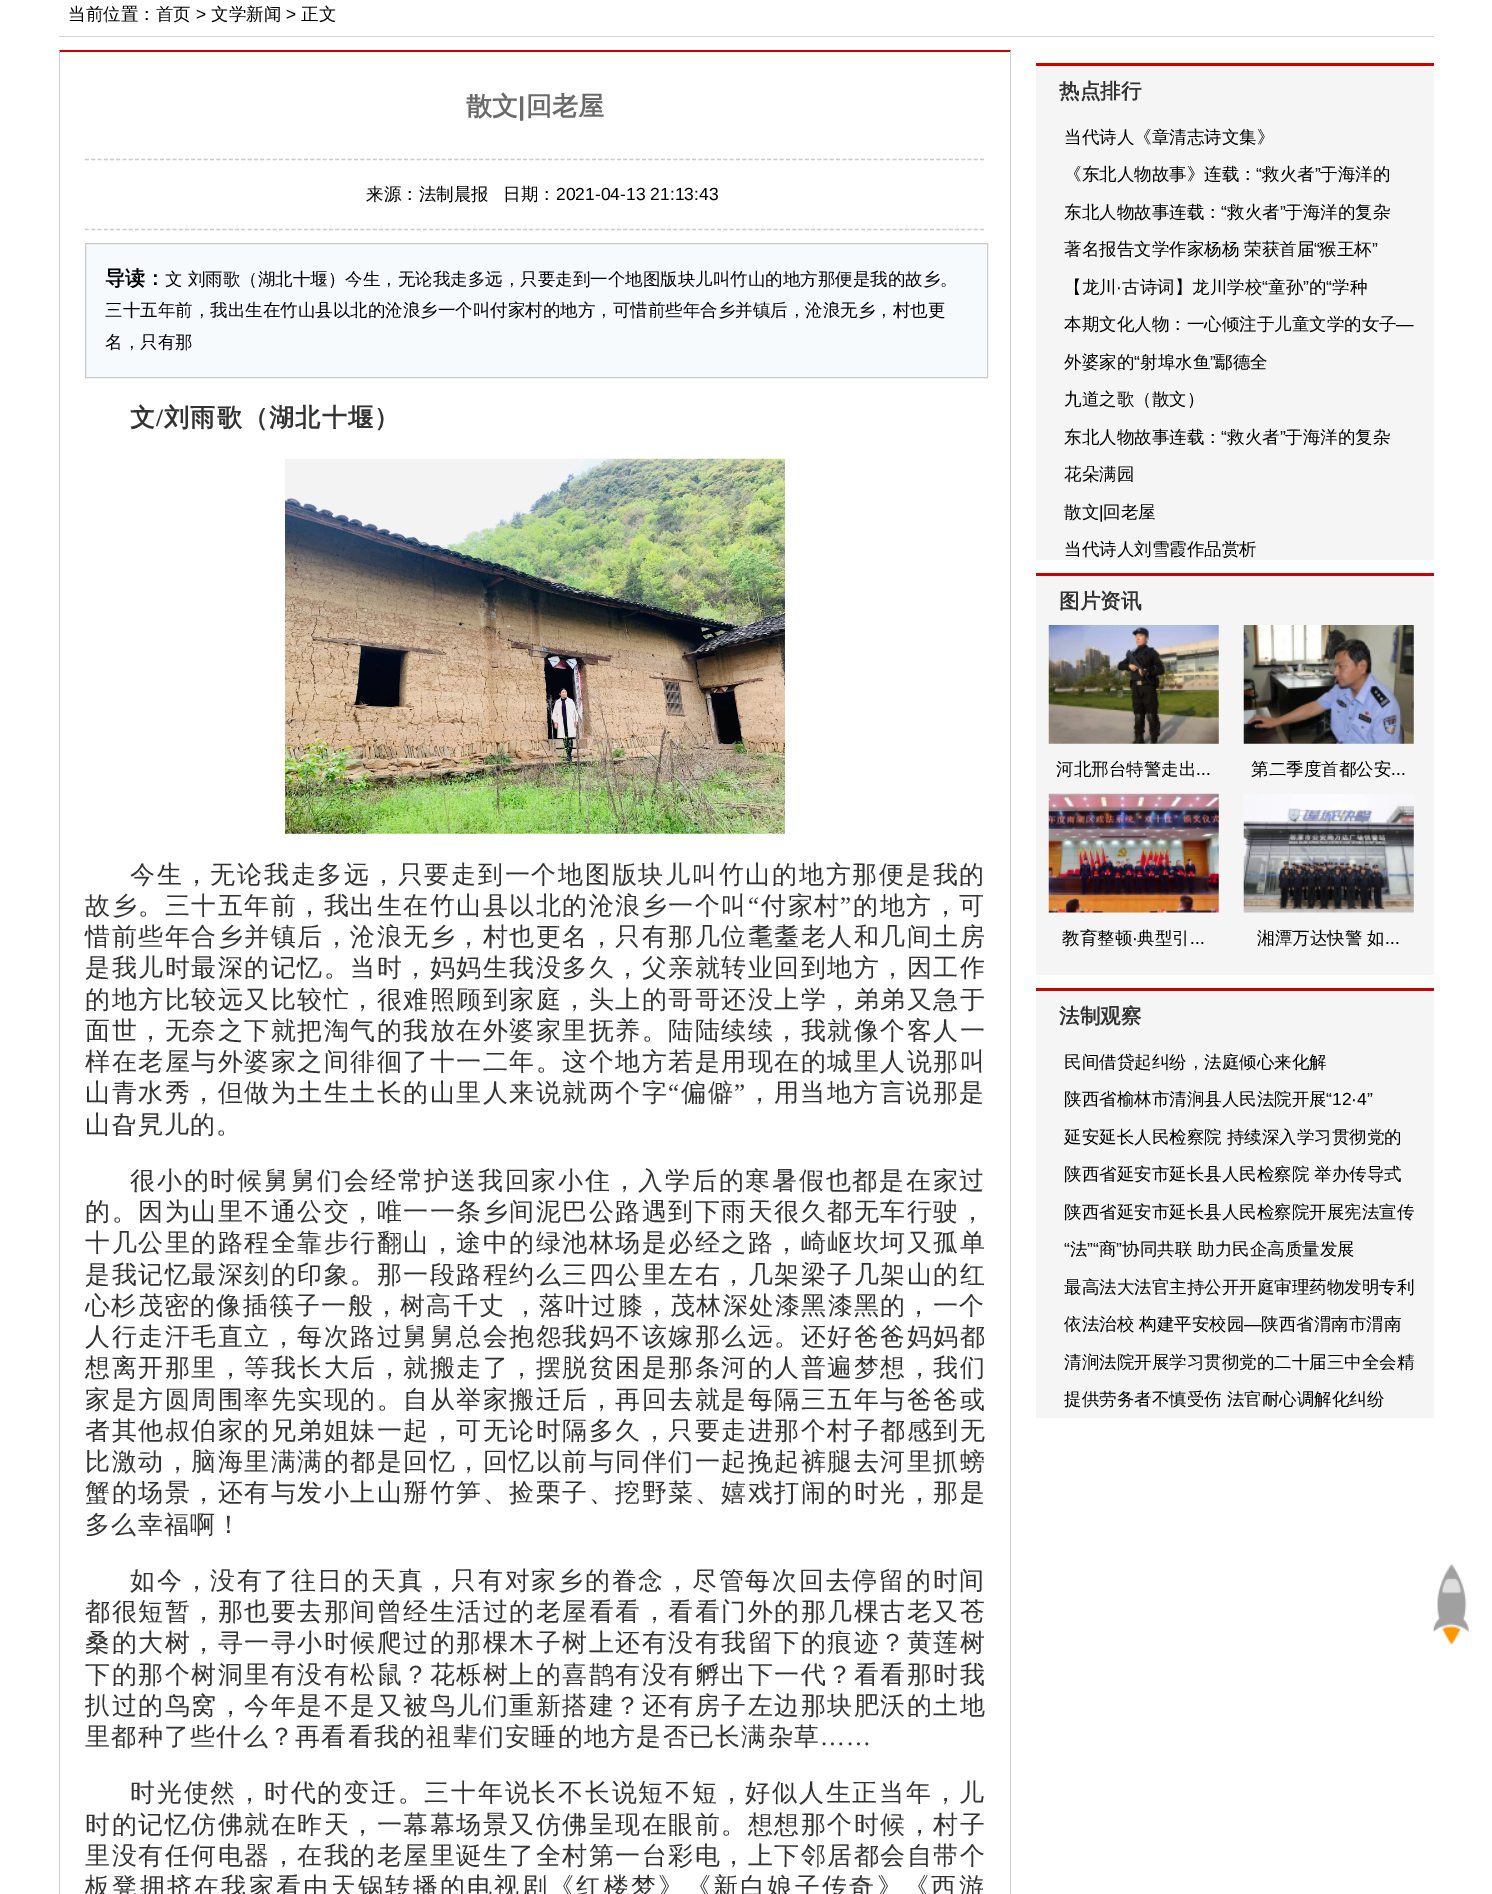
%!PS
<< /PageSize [1492 1894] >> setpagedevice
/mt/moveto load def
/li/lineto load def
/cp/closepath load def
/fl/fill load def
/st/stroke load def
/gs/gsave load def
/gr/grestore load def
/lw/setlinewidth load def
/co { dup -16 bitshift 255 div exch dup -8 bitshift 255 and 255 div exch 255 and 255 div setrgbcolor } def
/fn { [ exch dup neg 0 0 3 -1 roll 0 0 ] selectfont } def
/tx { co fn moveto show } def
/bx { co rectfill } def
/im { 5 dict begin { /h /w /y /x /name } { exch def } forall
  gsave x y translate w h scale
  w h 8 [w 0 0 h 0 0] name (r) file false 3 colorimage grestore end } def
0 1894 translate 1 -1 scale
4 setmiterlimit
0 0 1492 1894 16#FFFFFF bx
59 36 1375 1 16#D4D4D4 bx
16#CE0000 co
59 50 mt 1011 50 li 1010 52 li 60 52 li cp fl
16#CCCCCC co
1011 50 mt 1011 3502 li 1010 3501 li 1010 52 li cp fl
59 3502 mt 59 50 li 60 52 li 60 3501 li cp fl
1.2 lw
[3.75 2.51] 0 setdash
85 159.5 mt 985 159.5 li st
85 229.5 mt 985 229.5 li st
16#F6FAFD co
85.5 243.5 mt 987.5 243.5 li 987.5 377.5 li 85.5 377.5 li cp gs fl gr
16#CCCCCC co
1 lw
[] 0 setdash
st
(media/1.raw) 285 458 500 376 im
1036 66 398 494 16#F5F5F5 bx
1036 63 398 3 16#CE0000 bx
1036 576 398 399 16#F5F5F5 bx
1036 573 398 3 16#CE0000 bx
(media/2.raw) 1048 625 171 119 im
(media/3.raw) 1243 625 171 119 im
(media/4.raw) 1048 793 171 120 im
(media/5.raw) 1243 794 171 119 im
1036 991 398 427 16#F5F5F5 bx
1036 988 398 3 16#CE0000 bx
(media/6.raw) 1432 1563 37 82 im
(当前位置：首页) 68 20 /WenQuanYiZenHei-Medium 17.5 16#000000 tx
(>) 196 20 /LiberationSans-Regular 17.5 16#000000 tx
(文学新闻) 211 20 /WenQuanYiZenHei-Medium 17.5 16#000000 tx
(>) 286 20 /LiberationSans-Regular 17.5 16#000000 tx
(正文) 301 20 /WenQuanYiZenHei-Medium 17.5 16#000000 tx
(散文) 466 115 /WenQuanYiZenHei-Bold 26 16#6A6A6A tx
(|) 518 115 /LiberationSans-Bold 26 16#6A6A6A tx
(回老屋) 526 115 /WenQuanYiZenHei-Bold 26 16#6A6A6A tx
(来源：法制晨报) 366 200 /WenQuanYiZenHei-Medium 17.5 16#000000 tx
(日期：) 503 200 /WenQuanYiZenHei-Medium 17.5 16#000000 tx
(2021-04-13 21:13:43) 556 200 /LiberationSans-Regular 17.5 16#000000 tx
(导读：) 105 285 /WenQuanYiZenHei-Bold 20 16#000000 tx
(文 刘雨歌（湖北十堰）今生，无论我走多远，只要走到一个地图版块儿叫竹山的地方那便是我的故乡。) 165 285 /WenQuanYiZenHei-Medium 17.5 16#000000 tx
(三十五年前，我出生在竹山县以北的沧浪乡一个叫付家村的地方，可惜前些年合乡并镇后，沧浪无乡，村也更) 105 316 /WenQuanYiZenHei-Medium 17.5 16#000000 tx
(名，只有那) 105 348 /WenQuanYiZenHei-Medium 17.5 16#000000 tx
/WenQuanYiZenHei-Bold 25 fn
16#333333 co
130 426 mt 1.25 0 (文) ashow
/LiberationSerif-Bold 25 fn
156 426 mt 1.25 0 (/) ashow
/WenQuanYiZenHei-Bold 25 fn
164 426 mt 1.25 0 (刘雨歌（湖北十堰）) ashow
/WenQuanYiZenHei-Medium 25 fn
130 883 mt 1.75 0 (今生，无论我走多远，只要走到一个地图版块儿叫竹山的地方那便是我的) ashow
85 914 mt 1.5 0 (故乡。三十五年前，我出生在竹山县以北的沧浪乡一个叫) ashow
/LiberationSerif-Regular 25 fn
748 914 mt 1.5 0 (“) ashow
/WenQuanYiZenHei-Medium 25 fn
761 914 mt 1.5 0 (付家村) ashow
/LiberationSerif-Regular 25 fn
840 914 mt 1.5 0 (”) ashow
/WenQuanYiZenHei-Medium 25 fn
853 914 mt 1.5 0 (的地方，可) ashow
85 945 mt 1.5 0 (惜前些年合乡并镇后，沧浪无乡，村也更名，只有那几位耄耋老人和几间土房) ashow
85 976 mt 1.5 0 (是我儿时最深的记忆。当时，妈妈生我没多久，父亲就转业回到地方，因工作) ashow
85 1008 mt 1.5 0 (的地方比较远又比较忙，很难照顾到家庭，头上的哥哥还没上学，弟弟又急于) ashow
85 1039 mt 1.5 0 (面世，无奈之下就把淘气的我放在外婆家里抚养。陆陆续续，我就像个客人一) ashow
85 1070 mt 1.5 0 (样在老屋与外婆家之间徘徊了十一二年。这个地方若是用现在的城里人说那叫) ashow
85 1101 mt 1.5 0 (山青水秀，但做为土生土长的山里人来说就两个字) ashow
/LiberationSerif-Regular 25 fn
668 1101 mt 1.5 0 (“) ashow
/WenQuanYiZenHei-Medium 25 fn
681 1101 mt 1.5 0 (偏僻) ashow
/LiberationSerif-Regular 25 fn
734 1101 mt 1.5 0 (”) ashow
/WenQuanYiZenHei-Medium 25 fn
747 1101 mt 1.5 0 (，用当地方言说那是) ashow
85 1133 mt 1.25 0 (山旮旯儿的。) ashow
130 1189 mt 1.75 0 (很小的时候舅舅们会经常护送我回家小住，入学后的寒暑假也都是在家过) ashow
85 1220 mt 1.5 0 (的。因为山里不通公交，唯一一条乡间泥巴公路遇到下雨天很久都无车行驶，) ashow
85 1251 mt 1.5 0 (十几公里的路程全靠步行翻山，途中的绿池林场是必经之路，崎岖坎坷又孤单) ashow
85 1283 mt 1.5 0 (是我记忆最深刻的印象。那一段路程约么三四公里左右，几架梁子几架山的红) ashow
85 1314 mt -1 0 32 1.25 0 (心杉茂密的像插筷子一般，树高千丈 ，落叶过膝，茂林深处漆黑漆黑的，一个) awidthshow
85 1345 mt 1.5 0 (人行走汗毛直立，每次路过舅舅总会抱怨我妈不该嫁那么远。还好爸爸妈妈都) ashow
85 1376 mt 1.5 0 (想离开那里，等我长大后，就搬走了，摆脱贫困是那条河的人普遍梦想，我们) ashow
85 1408 mt 1.5 0 (家是方圆周围率先实现的。自从举家搬迁后，再回去就是每隔三五年与爸爸或) ashow
85 1439 mt 1.5 0 (者其他叔伯家的兄弟姐妹一起，可无论时隔多久，只要走进那个村子都感到无) ashow
85 1470 mt 1.5 0 (比激动，脑海里满满的都是回忆，回忆以前与同伴们一起挽起裤腿去河里抓螃) ashow
85 1501 mt 1.5 0 (蟹的场景，还有与发小上山掰竹笋、捡栗子、挖野菜、嬉戏打闹的时光，那是) ashow
85 1533 mt 1.25 0 (多么幸福啊！) ashow
130 1589 mt 1.75 0 (如今，没有了往日的天真，只有对家乡的眷念，尽管每次回去停留的时间) ashow
85 1620 mt 1.5 0 (都很短暂，那也要去那间曾经生活过的老屋看看，看看门外的那几棵古老又苍) ashow
85 1651 mt 1.5 0 (桑的大树，寻一寻小时候爬过的那棵木子树上还有没有我留下的痕迹？黄莲树) ashow
85 1683 mt 1.5 0 (下的那个树洞里有没有松鼠？花栎树上的喜鹊有没有孵出下一代？看看那时我) ashow
85 1714 mt 1.5 0 (扒过的鸟窝，今年是不是又被鸟儿们重新搭建？还有房子左边那块肥沃的土地) ashow
85 1745 mt 1.25 0 (里都种了些什么？再看看我的祖辈们安睡的地方是否已长满杂草) ashow
/LiberationSerif-Regular 25 fn
820 1745 mt 1.25 0 (……) ashow
/WenQuanYiZenHei-Medium 25 fn
130 1801 mt 1.75 0 (时光使然，时代的变迁。三十年说长不长说短不短，好似人生正当年，儿) ashow
85 1833 mt 1.5 0 (时的记忆仿佛就在昨天，一幕幕场景又仿佛呈现在眼前。想想那个时候，村子) ashow
85 1864 mt 1.5 0 (里没有任何电器，在我的老屋里诞生了全村第一台彩电，上下邻居都会自带个) ashow
85 1895 mt 2.3 0 (板凳拥挤在我家看由天锅转播的电视剧《红楼梦》《新白娘子传奇》《西游) ashow
(热点排行) 1059 98 /WenQuanYiZenHei-Bold 20.5 16#333333 tx
(当代诗人《章清志诗文集》) 1064 143 /WenQuanYiZenHei-Medium 17.5 16#000000 tx
(《东北人物故事》连载：) 1064 180 /WenQuanYiZenHei-Medium 17.5 16#000000 tx
(“) 1256 180 /LiberationSans-Regular 17.5 16#000000 tx
(救火者) 1262 180 /WenQuanYiZenHei-Medium 17.5 16#000000 tx
(”) 1315 180 /LiberationSans-Regular 17.5 16#000000 tx
(于海洋的) 1320 180 /WenQuanYiZenHei-Medium 17.5 16#000000 tx
(东北人物故事连载：) 1064 218 /WenQuanYiZenHei-Medium 17.5 16#000000 tx
(“) 1221 218 /LiberationSans-Regular 17.5 16#000000 tx
(救火者) 1227 218 /WenQuanYiZenHei-Medium 17.5 16#000000 tx
(”) 1280 218 /LiberationSans-Regular 17.5 16#000000 tx
(于海洋的复杂) 1285 218 /WenQuanYiZenHei-Medium 17.5 16#000000 tx
(著名报告文学作家杨杨 荣获首届) 1064 255 /WenQuanYiZenHei-Medium 17.5 16#000000 tx
(“) 1314 255 /LiberationSans-Regular 17.5 16#000000 tx
(猴王杯) 1319 255 /WenQuanYiZenHei-Medium 17.5 16#000000 tx
(”) 1372 255 /LiberationSans-Regular 17.5 16#000000 tx
(【龙川) 1064 293 /WenQuanYiZenHei-Medium 17.5 16#000000 tx
(古诗词】龙川学校) 1122 293 /WenQuanYiZenHei-Medium 17.5 16#000000 tx
(“) 1262 293 /LiberationSans-Regular 17.5 16#000000 tx
(童孙) 1268 293 /WenQuanYiZenHei-Medium 17.5 16#000000 tx
(”) 1303 293 /LiberationSans-Regular 17.5 16#000000 tx
(的) 1309 293 /WenQuanYiZenHei-Medium 17.5 16#000000 tx
(“) 1326 293 /LiberationSans-Regular 17.5 16#000000 tx
(学种) 1332 293 /WenQuanYiZenHei-Medium 17.5 16#000000 tx
(·) 1116 293 /LiberationSans-Regular 17.5 16#000000 tx
(本期文化人物：一心倾注于儿童文学的女子) 1064 330 /WenQuanYiZenHei-Medium 17.5 16#000000 tx
(—) 1396 330 /LiberationSans-Regular 17.5 16#000000 tx
(外婆家的) 1064 368 /WenQuanYiZenHei-Medium 17.5 16#000000 tx
(“) 1134 368 /LiberationSans-Regular 17.5 16#000000 tx
(射埠水鱼) 1140 368 /WenQuanYiZenHei-Medium 17.5 16#000000 tx
(”) 1210 368 /LiberationSans-Regular 17.5 16#000000 tx
(鄢德全) 1215 368 /WenQuanYiZenHei-Medium 17.5 16#000000 tx
(九道之歌（散文）) 1064 405 /WenQuanYiZenHei-Medium 17.5 16#000000 tx
(东北人物故事连载：) 1064 443 /WenQuanYiZenHei-Medium 17.5 16#000000 tx
(“) 1221 443 /LiberationSans-Regular 17.5 16#000000 tx
(救火者) 1227 443 /WenQuanYiZenHei-Medium 17.5 16#000000 tx
(”) 1280 443 /LiberationSans-Regular 17.5 16#000000 tx
(于海洋的复杂) 1285 443 /WenQuanYiZenHei-Medium 17.5 16#000000 tx
(花朵满园) 1064 480 /WenQuanYiZenHei-Medium 17.5 16#000000 tx
(散文) 1064 518 /WenQuanYiZenHei-Medium 17.5 16#000000 tx
(|) 1099 518 /LiberationSans-Regular 17.5 16#000000 tx
(回老屋) 1103 518 /WenQuanYiZenHei-Medium 17.5 16#000000 tx
(当代诗人刘雪霞作品赏析) 1064 555 /WenQuanYiZenHei-Medium 17.5 16#000000 tx
(图片资讯) 1059 608 /WenQuanYiZenHei-Bold 20.5 16#333333 tx
(河北邢台特警走出) 1056 775 /WenQuanYiZenHei-Medium 17.5 16#000000 tx
(...) 1196 775 /LiberationSans-Regular 17.5 16#000000 tx
(第二季度首都公安) 1251 775 /WenQuanYiZenHei-Medium 17.5 16#000000 tx
(...) 1391 775 /LiberationSans-Regular 17.5 16#000000 tx
(教育整顿) 1062 944 /WenQuanYiZenHei-Medium 17.5 16#000000 tx
(·) 1132 944 /LiberationSans-Regular 17.5 16#000000 tx
(典型引) 1137 944 /WenQuanYiZenHei-Medium 17.5 16#000000 tx
(...) 1190 944 /LiberationSans-Regular 17.5 16#000000 tx
(湘潭万达快警 如) 1257 944 /WenQuanYiZenHei-Medium 17.5 16#000000 tx
(...) 1385 944 /LiberationSans-Regular 17.5 16#000000 tx
(法制观察) 1059 1023 /WenQuanYiZenHei-Bold 20.5 16#333333 tx
(民间借贷起纠纷，法庭倾心来化解) 1064 1068 /WenQuanYiZenHei-Medium 17.5 16#000000 tx
(陕西省榆林市清涧县人民法院开展) 1064 1105 /WenQuanYiZenHei-Medium 17.5 16#000000 tx
(“12·4”) 1326 1105 /LiberationSans-Regular 17.5 16#000000 tx
(延安延长人民检察院 持续深入学习贯彻党的) 1064 1143 /WenQuanYiZenHei-Medium 17.5 16#000000 tx
(陕西省延安市延长县人民检察院 举办传导式) 1064 1180 /WenQuanYiZenHei-Medium 17.5 16#000000 tx
(陕西省延安市延长县人民检察院开展宪法宣传) 1064 1218 /WenQuanYiZenHei-Medium 17.5 16#000000 tx
(“) 1064 1255 /LiberationSans-Regular 17.5 16#000000 tx
(法) 1070 1255 /WenQuanYiZenHei-Medium 17.5 16#000000 tx
(”“) 1087 1255 /LiberationSans-Regular 17.5 16#000000 tx
(商) 1099 1255 /WenQuanYiZenHei-Medium 17.5 16#000000 tx
(”) 1116 1255 /LiberationSans-Regular 17.5 16#000000 tx
(协同共联 助力民企高质量发展) 1122 1255 /WenQuanYiZenHei-Medium 17.5 16#000000 tx
(最高法大法官主持公开开庭审理药物发明专利) 1064 1293 /WenQuanYiZenHei-Medium 17.5 16#000000 tx
(依法治校 构建平安校园) 1064 1330 /WenQuanYiZenHei-Medium 17.5 16#000000 tx
(—) 1244 1330 /LiberationSans-Regular 17.5 16#000000 tx
(陕西省渭南市渭南) 1261 1330 /WenQuanYiZenHei-Medium 17.5 16#000000 tx
(清涧法院开展学习贯彻党的二十届三中全会精) 1064 1368 /WenQuanYiZenHei-Medium 17.5 16#000000 tx
(提供劳务者不慎受伤 法官耐心调解化纠纷) 1064 1405 /WenQuanYiZenHei-Medium 17.5 16#000000 tx
showpage
